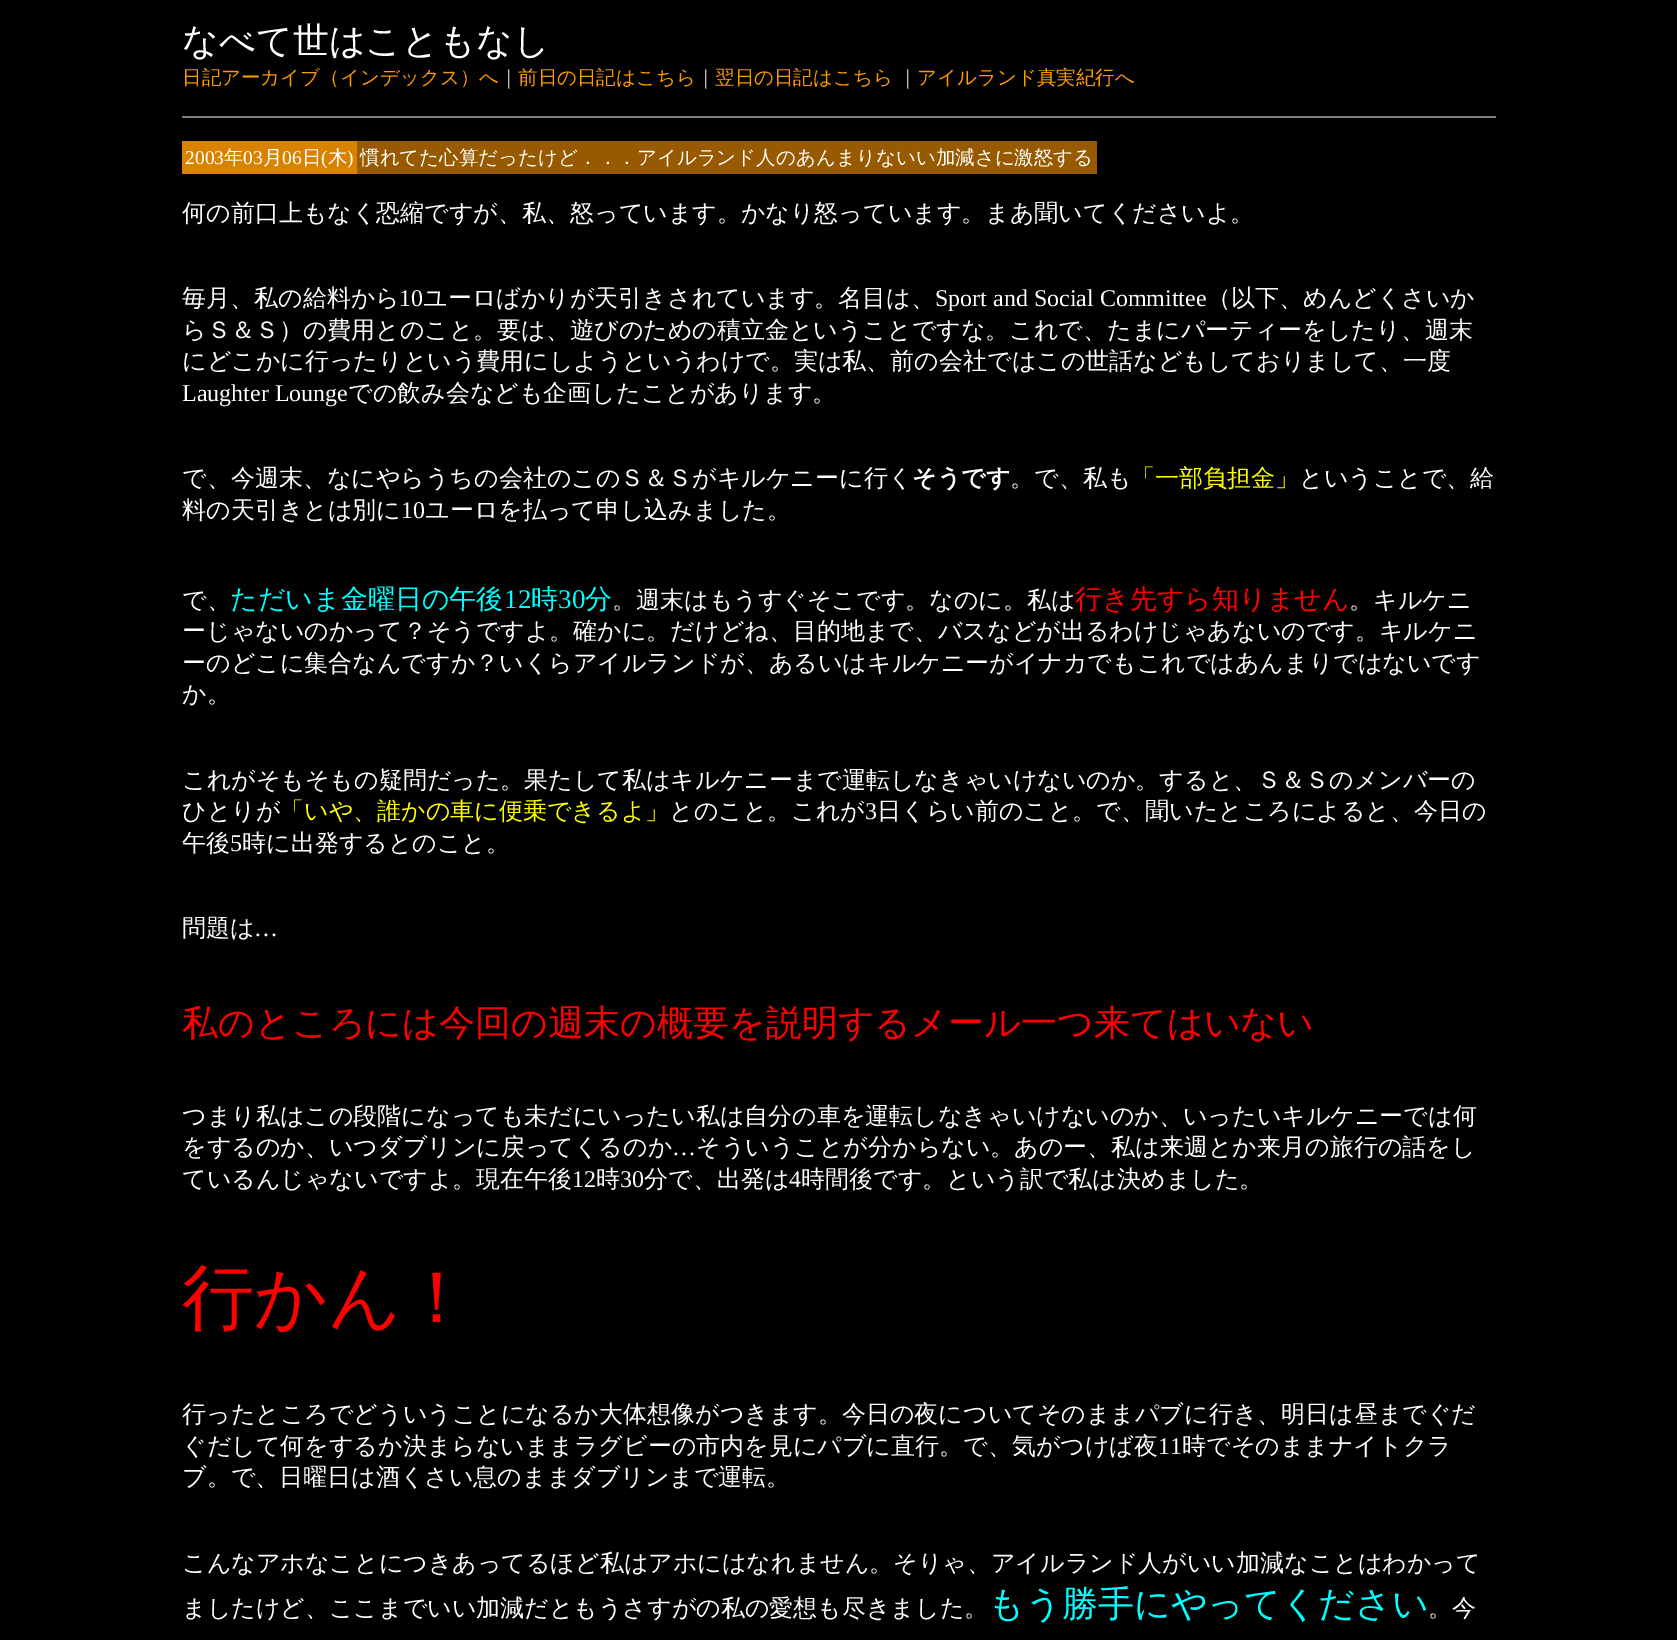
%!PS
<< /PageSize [1677 1640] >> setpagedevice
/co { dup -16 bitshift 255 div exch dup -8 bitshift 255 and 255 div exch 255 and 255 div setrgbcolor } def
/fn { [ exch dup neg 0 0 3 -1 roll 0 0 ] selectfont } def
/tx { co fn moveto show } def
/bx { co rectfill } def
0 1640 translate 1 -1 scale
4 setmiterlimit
0 0 1677 1640 16#000000 bx
182 116 1314 2 16#808080 bx
182 141 175 33 16#D98200 bx
357 141 740 33 16#975A00 bx
(なべて世はこともなし) 182 53 /WenQuanYiZenHei-Medium 36 16#FFFFFF tx
(日記アーカイブ（インデックス）へ) 182 84 /WenQuanYiZenHei-Medium 19.5 16#FF9900 tx
(｜) 499 84 /WenQuanYiZenHei-Medium 19.5 16#FFFFFF tx
(前日の日記はこちら) 518 84 /WenQuanYiZenHei-Medium 19.5 16#FF9900 tx
(｜) 696 84 /WenQuanYiZenHei-Medium 19.5 16#FFFFFF tx
(翌日の日記はこちら) 715 84 /WenQuanYiZenHei-Medium 19.5 16#FF9900 tx
(｜) 898 84 /WenQuanYiZenHei-Medium 19.5 16#FFFFFF tx
(アイルランド真実紀行へ) 917 84 /WenQuanYiZenHei-Medium 19.5 16#FF9900 tx
(2003) 185 164 /LiberationSerif-Regular 19.5 16#FFFFFF tx
(年) 224 164 /WenQuanYiZenHei-Medium 19.5 16#FFFFFF tx
(03) 243 164 /LiberationSerif-Regular 19.5 16#FFFFFF tx
(月) 263 164 /WenQuanYiZenHei-Medium 19.5 16#FFFFFF tx
(06) 282 164 /LiberationSerif-Regular 19.5 16#FFFFFF tx
(日) 302 164 /WenQuanYiZenHei-Medium 19.5 16#FFFFFF tx
(\() 321 164 /LiberationSerif-Regular 19.5 16#FFFFFF tx
(木) 328 164 /WenQuanYiZenHei-Medium 19.5 16#FFFFFF tx
(\)) 347 164 /LiberationSerif-Regular 19.5 16#FFFFFF tx
(慣れてた心算だったけど．．．アイルランド人のあんまりないい加減さに激怒する) 360 164 /WenQuanYiZenHei-Medium 19.5 16#FFFFFF tx
(何の前口上もなく恐縮ですが、私、怒っています。かなり怒っています。まあ聞いてくださいよ。) 182 221 /WenQuanYiZenHei-Medium 24 16#FFFFFF tx
(毎月、私の給料から) 182 306 /WenQuanYiZenHei-Medium 24 16#FFFFFF tx
(10) 399 306 /LiberationSerif-Regular 24 16#FFFFFF tx
(ユーロばかりが天引きされています。名目は、) 423 306 /WenQuanYiZenHei-Medium 24 16#FFFFFF tx
(Sport and Social Committee) 935 306 /LiberationSerif-Regular 24 16#FFFFFF tx
(（以下、めんどくさいか) 1207 306 /WenQuanYiZenHei-Medium 24 16#FFFFFF tx
(らＳ＆Ｓ）の費用とのこと。要は、遊びのための積立金ということですな。これで、たまにパーティーをしたり、週末) 182 338 /WenQuanYiZenHei-Medium 24 16#FFFFFF tx
(にどこかに行ったりという費用にしようというわけで。実は私、前の会社ではこの世話などもしておりまして、一度) 182 369 /WenQuanYiZenHei-Medium 24 16#FFFFFF tx
(Laughter Lounge) 182 401 /LiberationSerif-Regular 24 16#FFFFFF tx
(での飲み会なども企画したことがあります。) 348 401 /WenQuanYiZenHei-Medium 24 16#FFFFFF tx
(で、今週末、なにやらうちの会社のこのＳ＆Ｓがキルケニーに行く) 182 486 /WenQuanYiZenHei-Medium 24 16#FFFFFF tx
(そうです) 912 486 /WenQuanYiZenHei-Bold 24 16#FFFFFF tx
(。で、私も) 1010 486 /WenQuanYiZenHei-Medium 24 16#FFFFFF tx
(「一部負担金」) 1131 486 /WenQuanYiZenHei-Medium 24 16#FFFF00 tx
(ということで、給) 1299 486 /WenQuanYiZenHei-Medium 24 16#FFFFFF tx
(料の天引きとは別に) 182 518 /WenQuanYiZenHei-Medium 24 16#FFFFFF tx
(10) 401 518 /LiberationSerif-Regular 24 16#FFFFFF tx
(ユーロを払って申し込みました。) 425 518 /WenQuanYiZenHei-Medium 24 16#FFFFFF tx
(で、) 182 608 /WenQuanYiZenHei-Medium 24 16#FFFFFF tx
(ただいま金曜日の午後) 230 608 /WenQuanYiZenHei-Medium 27 16#00FFFF tx
(12) 504 608 /LiberationSerif-Regular 27 16#00FFFF tx
(時) 531 608 /WenQuanYiZenHei-Medium 27 16#00FFFF tx
(30) 558 608 /LiberationSerif-Regular 27 16#00FFFF tx
(分) 585 608 /WenQuanYiZenHei-Medium 27 16#00FFFF tx
(。週末はもうすぐそこです。なのに。私は) 612 608 /WenQuanYiZenHei-Medium 24 16#FFFFFF tx
(行き先すら知りません) 1075 608 /WenQuanYiZenHei-Medium 27 16#FF0000 tx
(。キルケニ) 1349 608 /WenQuanYiZenHei-Medium 24 16#FFFFFF tx
(ーじゃないのかって？そうですよ。確かに。だけどね、目的地まで、バスなどが出るわけじゃあないのです。キルケニ) 182 639 /WenQuanYiZenHei-Medium 24 16#FFFFFF tx
(ーのどこに集合なんですか？いくらアイルランドが、あるいはキルケニーがイナカでもこれではあんまりではないです) 182 671 /WenQuanYiZenHei-Medium 24 16#FFFFFF tx
(か。) 182 702 /WenQuanYiZenHei-Medium 24 16#FFFFFF tx
(これがそもそもの疑問だった。果たして私はキルケニーまで運転しなきゃいけないのか。すると、Ｓ＆Ｓのメンバーの) 182 788 /WenQuanYiZenHei-Medium 24 16#FFFFFF tx
(ひとりが) 182 819 /WenQuanYiZenHei-Medium 24 16#FFFFFF tx
(「いや、誰かの車に便乗できるよ」) 280 819 /WenQuanYiZenHei-Medium 24 16#FFFF00 tx
(とのこと。これが) 669 819 /WenQuanYiZenHei-Medium 24 16#FFFFFF tx
(3) 865 819 /LiberationSerif-Regular 24 16#FFFFFF tx
(日くらい前のこと。で、聞いたところによると、今日の) 877 819 /WenQuanYiZenHei-Medium 24 16#FFFFFF tx
(午後) 182 851 /WenQuanYiZenHei-Medium 24 16#FFFFFF tx
(5) 230 851 /LiberationSerif-Regular 24 16#FFFFFF tx
(時に出発するとのこと。) 242 851 /WenQuanYiZenHei-Medium 24 16#FFFFFF tx
(問題は) 182 936 /WenQuanYiZenHei-Medium 24 16#FFFFFF tx
(…) 254 936 /LiberationSerif-Regular 24 16#FFFFFF tx
(私のところには今回の週末の概要を説明するメール一つ来てはいない) 182 1035 /WenQuanYiZenHei-Medium 36 16#FF0000 tx
(つまり私はこの段階になっても未だにいったい私は自分の車を運転しなきゃいけないのか、いったいキルケニーでは何) 182 1124 /WenQuanYiZenHei-Medium 24 16#FFFFFF tx
(をするのか、いつダブリンに戻ってくるのか) 182 1155 /WenQuanYiZenHei-Medium 24 16#FFFFFF tx
(…) 672 1155 /LiberationSerif-Regular 24 16#FFFFFF tx
(そういうことが分からない。あのー、私は来週とか来月の旅行の話をし) 696 1155 /WenQuanYiZenHei-Medium 24 16#FFFFFF tx
(ているんじゃないですよ。現在午後) 182 1187 /WenQuanYiZenHei-Medium 24 16#FFFFFF tx
(12) 572 1187 /LiberationSerif-Regular 24 16#FFFFFF tx
(時) 596 1187 /WenQuanYiZenHei-Medium 24 16#FFFFFF tx
(30) 620 1187 /LiberationSerif-Regular 24 16#FFFFFF tx
(分で、出発は) 644 1187 /WenQuanYiZenHei-Medium 24 16#FFFFFF tx
(4) 789 1187 /LiberationSerif-Regular 24 16#FFFFFF tx
(時間後です。という訳で私は決めました。) 801 1187 /WenQuanYiZenHei-Medium 24 16#FFFFFF tx
(行かん！) 182 1322 /WenQuanYiZenHei-Medium 72 16#FF0000 tx
(行ったところでどういうことになるか大体想像がつきます。今日の夜についてそのままパブに行き、明日は昼までぐだ) 182 1422 /WenQuanYiZenHei-Medium 24 16#FFFFFF tx
(ぐだして何をするか決まらないままラグビーの市内を見にパブに直行。で、気がつけば夜) 182 1454 /WenQuanYiZenHei-Medium 24 16#FFFFFF tx
(11) 1158 1454 /LiberationSerif-Regular 24 16#FFFFFF tx
(時でそのままナイトクラ) 1182 1454 /WenQuanYiZenHei-Medium 24 16#FFFFFF tx
(ブ。で、日曜日は酒くさい息のままダブリンまで運転。) 182 1485 /WenQuanYiZenHei-Medium 24 16#FFFFFF tx
(こんなアホなことにつきあってるほど私はアホにはなれません。そりゃ、アイルランド人がいい加減なことはわかって) 182 1571 /WenQuanYiZenHei-Medium 24 16#FFFFFF tx
(ましたけど、ここまでいい加減だともうさすがの私の愛想も尽きました。) 182 1616 /WenQuanYiZenHei-Medium 24 16#FFFFFF tx
(もう勝手にやってください) 988 1616 /WenQuanYiZenHei-Medium 36 16#00FFFF tx
(。今) 1428 1616 /WenQuanYiZenHei-Medium 24 16#FFFFFF tx
showpage
